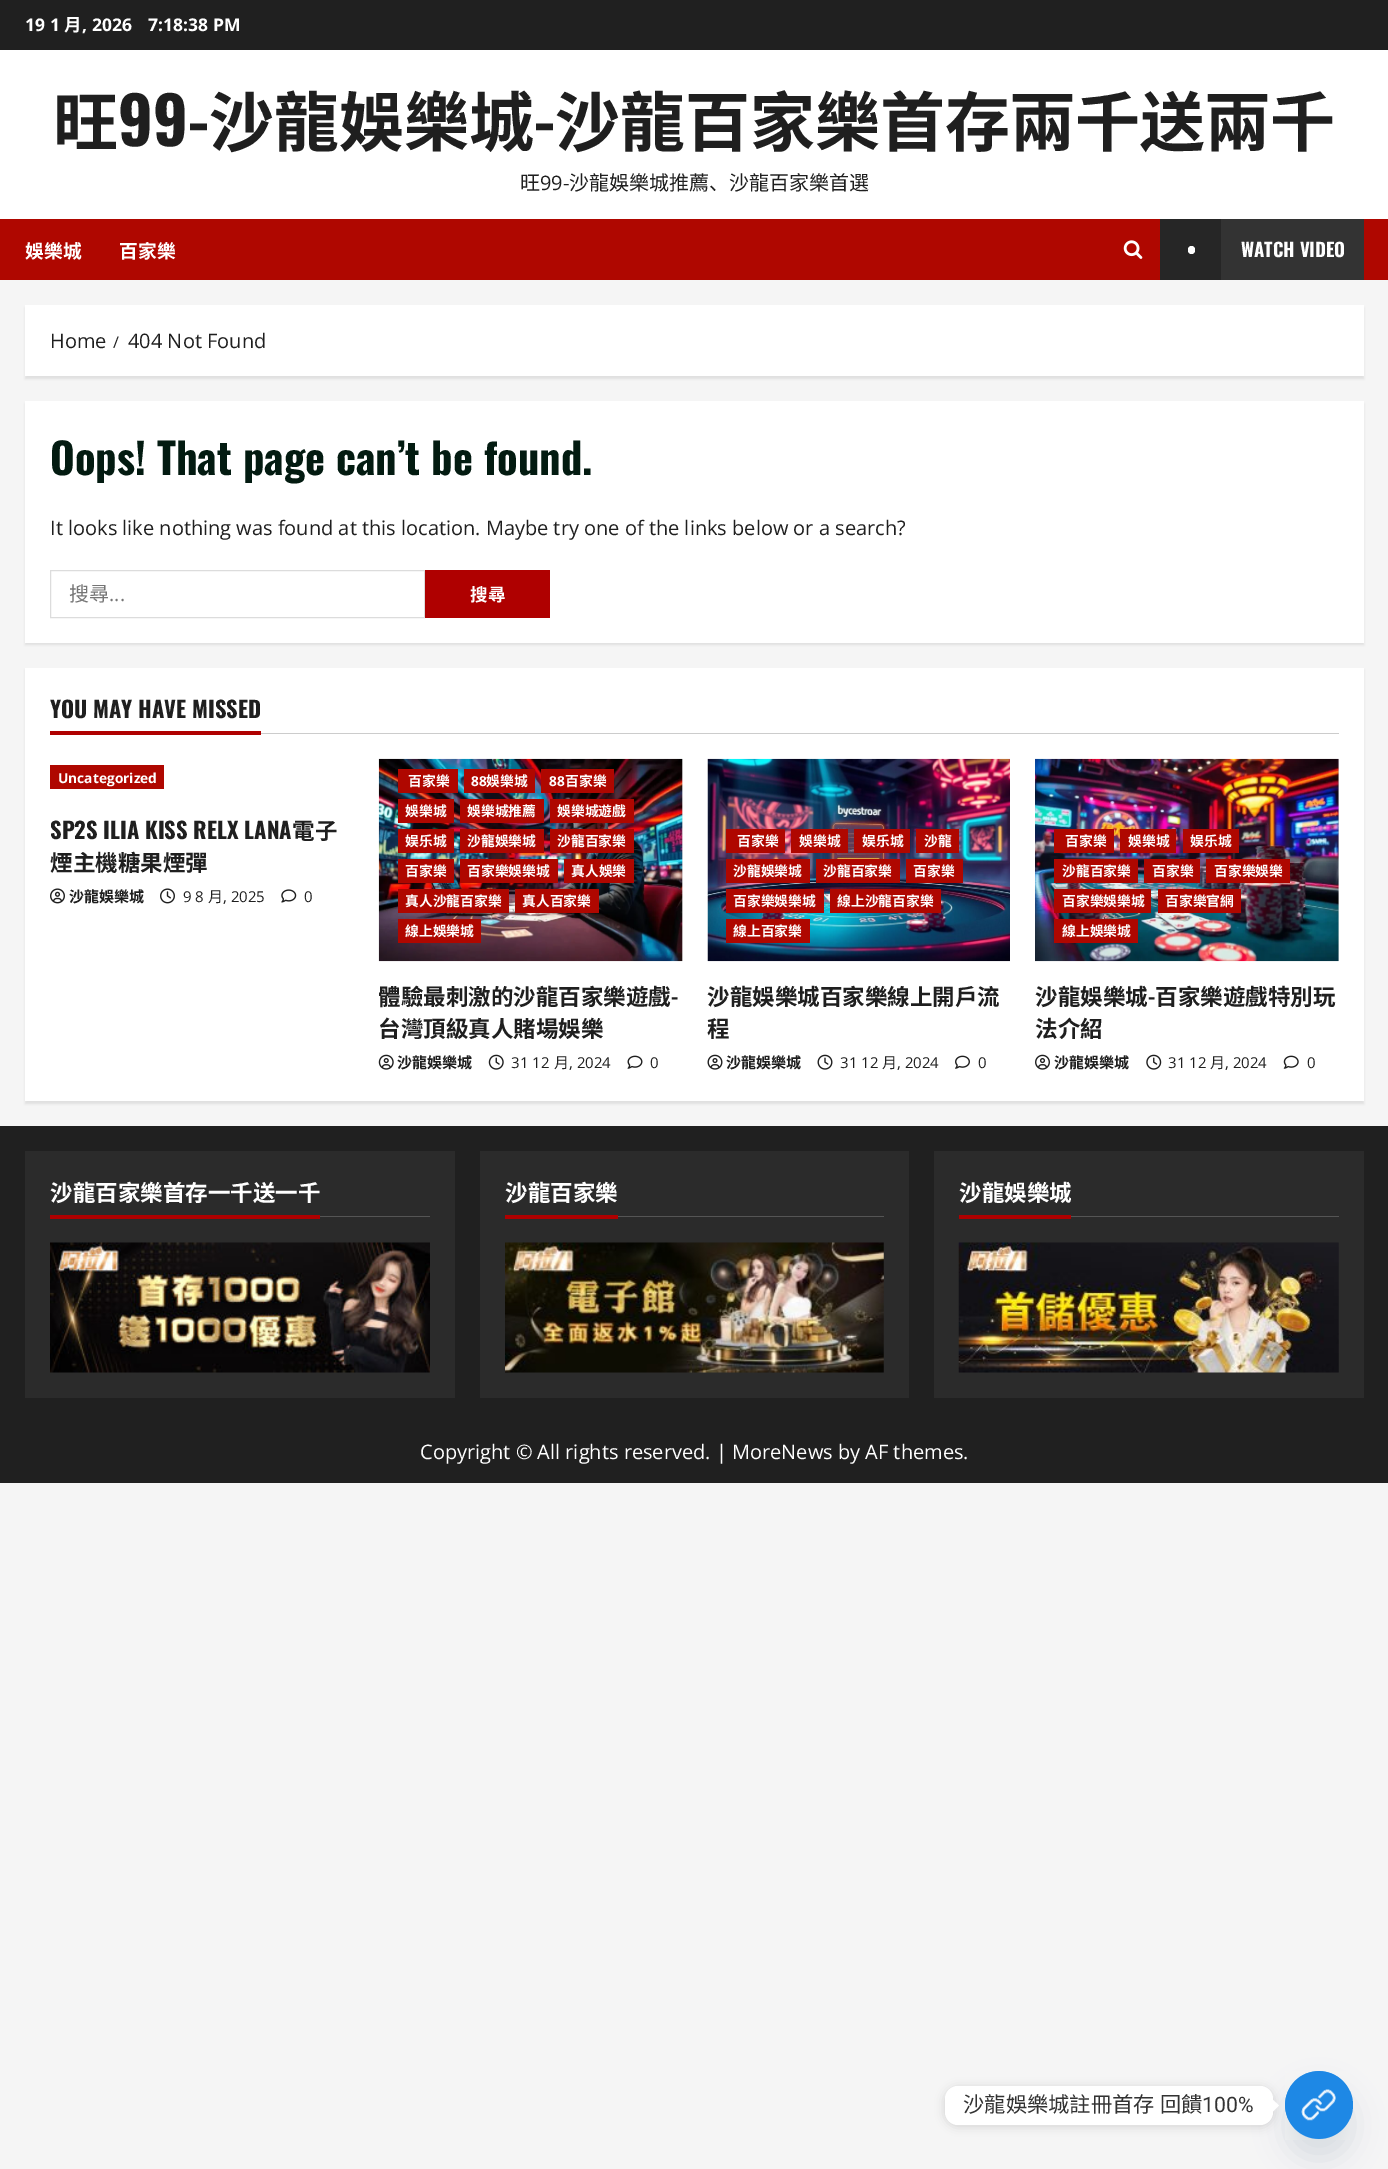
%!PS
<< /PageSize [1388 2169] /PageUsesTransparency true >> setpagedevice
/mt/moveto load def
/li/lineto load def
/cp/closepath load def
/fl/fill load def
/co { dup -16 bitshift 255 div exch dup -8 bitshift 255 and 255 div exch 255 and 255 div setrgbcolor } def
/fn { [ exch dup neg 0 0 3 -1 roll 0 0 ] selectfont } def
/tx { co fn moveto show } def
/bx { co rectfill } def
/al { dup .setfillconstantalpha .setstrokeconstantalpha } def
/ci { newpath 0 360 arc closepath } def
/rr { 5 dict begin { /r /h /w /y /x } { exch def } forall
  x r add y moveto x w add y 2 copy h add r arct x w add y h add x 1 index r arct
  x y h add x y r arct x y 2 copy exch w add exch r arct closepath end } def
/sh { 12 dict begin { /a /b /q /h /w /y /x } { exch def } forall gsave /was 0 def
  9 -2 -9 { dup b mul 4 div /e exch def 1 sub .425 mul 2.718 exch exp 1 add a .99 .min exch div /now exch def
    1 1 now sub 1 was sub div sub al /was now def
    w h .min e 2 mul add 0 gt { x e sub y e sub w e 2 mul add h e 2 mul add
      q e add b .6 mul add w h .min 2 div e add .min 0 .max rr fill } if } for grestore end } def
/im { 5 dict begin { /h /w /y /x /name } { exch def } forall
  gsave x y translate w h scale
  w h 8 [w 0 0 h 0 0] name (r) file false 3 colorimage grestore end } def
0 .pushpdf14devicefilter
0 2169 translate 1 -1 scale
4 setmiterlimit
0 0 1388 2169 16#F5F5F5 bx
0 0 1388 50 16#202020 bx
0 50 1388 169 16#FFFFFF bx
0 219 1388 61 16#AF0700 bx
(media/1.raw) 1123 240 20 19 im
1221 219 143 61 16#333333 bx
1160 219 61 61 16#262626 bx
16#FFFFFF co
1188 246 7 8 3.5 rr fl
16#000000 co
25 308 1339 71 0 1 .08 sh
25 305 1339 71 16#FFFFFF bx
16#000000 co
25 404 1339 241 0 1 .08 sh
25 401 1339 242 16#FFFFFF bx
16#DCDCDC co
50.5 570.5 374 47 rectstroke
425 570 125 48 16#AF0000 bx
16#000000 co
25 670 1339 434 0 1 .08 sh
25 668 1339 433 16#FFFFFF bx
261 733 1078 1 16#CCCCCC bx
50 731 211 4 16#AF0000 bx
50 765 114 24 16#AF0700 bx
(media/2.raw) 50 888 15 16 im
(media/3.raw) 160 888 15 16 im
(media/4.raw) 281 889 16 14 im
682 759 1 202 16#ECECEC bx
(media/5.raw) 378 758 305 204 im
398 769 60 24 16#AF0700 bx
464 769 71 24 16#AF0700 bx
541 769 73 24 16#AF0700 bx
398 799 56 24 16#AF0700 bx
460 799 84 24 16#AF0700 bx
550 799 84 24 16#AF0700 bx
398 829 56 24 16#AF0700 bx
460 829 84 24 16#AF0700 bx
550 829 84 24 16#AF0700 bx
398 859 56 24 16#AF0700 bx
460 859 98 24 16#AF0700 bx
564 859 70 24 16#AF0700 bx
398 889 111 24 16#AF0700 bx
515 889 84 24 16#AF0700 bx
398 919 83 24 16#AF0700 bx
(media/6.raw) 378 1054 16 16 im
(media/7.raw) 488 1054 16 16 im
(media/8.raw) 627 1055 16 14 im
(media/9.raw) 707 758 303 204 im
726 829 59 24 16#AF0700 bx
791 829 57 24 16#AF0700 bx
854 829 56 24 16#AF0700 bx
916 829 43 24 16#AF0700 bx
726 859 84 24 16#AF0700 bx
816 859 84 24 16#AF0700 bx
906 859 57 24 16#AF0700 bx
726 889 98 24 16#AF0700 bx
830 889 111 24 16#AF0700 bx
726 919 84 24 16#AF0700 bx
(media/10.raw) 707 1054 16 16 im
(media/11.raw) 817 1054 16 16 im
(media/12.raw) 955 1055 15 14 im
1338 759 1 202 16#ECECEC bx
(media/13.raw) 1035 758 304 204 im
1054 829 60 24 16#AF0700 bx
1120 829 56 24 16#AF0700 bx
1183 829 56 24 16#AF0700 bx
1054 859 84 24 16#AF0700 bx
1144 859 56 24 16#AF0700 bx
1206 859 84 24 16#AF0700 bx
1054 889 97 24 16#AF0700 bx
1158 889 83 24 16#AF0700 bx
1054 919 84 24 16#AF0700 bx
(media/14.raw) 1035 1054 15 16 im
(media/15.raw) 1146 1054 16 16 im
(media/16.raw) 1283 1055 16 14 im
0 1126 1388 357 16#202020 bx
25 1151 430 247 16#2B2B2B bx
320 1216 110 1 16#555555 bx
50 1215 270 4 16#AF0000 bx
(media/17.raw) 50 1242 380 131 im
480 1151 429 247 16#2B2B2B bx
618 1216 266 1 16#555555 bx
505 1215 113 4 16#AF0000 bx
(media/18.raw) 505 1242 379 131 im
934 1151 430 247 16#2B2B2B bx
1071 1216 268 1 16#555555 bx
959 1215 112 4 16#AF0000 bx
(media/19.raw) 958 1242 381 131 im
16#49687E co
1285 2091 68 68 34 15 .16 sh
16#1E88E5 co
1319 2105 34 ci fl
(media/20.raw) 1285 2071 65 69 im
16#000000 co
945 2088 328 38 13 5 .15 sh
16#FFFFFF co
945 2086 328 39 13 rr fl
1272.5 2112 mt 1272.5 2099.5 li 1279 2105.5 li cp fl
(19 1) 25 31 /OpenSans-Bold 17.5 16#FFFFFF tx
(月) 64 31 /NotoSansCJKSC-Bold 17.5 16#FFFFFF tx
(, 2026) 82 31 /OpenSans-Bold 17.5 16#FFFFFF tx
(7:18:38 PM) 148 31 /OpenSans-Bold 17.5 16#FFFFFF tx
(旺) 53 146 /NotoSansCJKSC-Bold 65 16#1F1F1F tx
(99-) 118 146 /Oswald-Bold 65 16#1F1F1F tx
(沙龍娛樂城) 209 146 /NotoSansCJKSC-Bold 65 16#1F1F1F tx
(-) 534 146 /Oswald-Bold 65 16#1F1F1F tx
(沙龍百家樂首存兩千送兩千) 555 146 /NotoSansCJKSC-Bold 65 16#1F1F1F tx
(旺) 520 190 /NotoSansCJKSC-Regular 20 16#1F1F1F tx
(99-) 540 190 /OpenSans-Regular 20 16#1F1F1F tx
(沙龍娛樂城推薦、沙龍百家樂首選) 569 190 /NotoSansCJKSC-Regular 20 16#1F1F1F tx
(娛樂城) 25 258 /NotoSansCJKSC-Bold 18.75 16#FFFFFF tx
(百家樂) 119 258 /NotoSansCJKSC-Bold 18.75 16#FFFFFF tx
(WATCH VIDEO) 1241 257 /Oswald-Bold 18.75 16#FFFFFF tx
(Home) 50 348 /OpenSans-Regular 20 16#1F1F1F tx
(/) 113 348 /OpenSans-Regular 16 16#1F1F1F tx
(404 Not Found) 128 348 /OpenSans-Regular 20 16#1F1F1F tx
(Oops! That page can’t be found.) 50 475 /Oswald-Bold 42.5 16#031B11 tx
(It looks like nothing was found at this location. Maybe try one of the links below or a search?) 50 535 /OpenSans-Regular 20 16#1F1F1F tx
(搜尋) 69 601 /NotoSansCJKSC-Regular 20 16#757575 tx
(...) 109 601 /OpenSans-Regular 20 16#757575 tx
(搜尋) 470 601 /NotoSansCJKSC-Bold 17.5 16#FFFFFF tx
(YOU MAY HAVE MISSED) 50 718 /Oswald-Bold 22.5 16#1F1F1F tx
(Uncategorized) 58 783 /OpenSans-Bold 13.75 16#FFFFFF tx
(SP2S ILIA KISS RELX LANA) 50 839 /Oswald-Bold 22.5 16#1F1F1F tx
(電子) 292 839 /NotoSansCJKSC-Bold 22.5 16#1F1F1F tx
(煙主機糖果煙彈) 50 871 /NotoSansCJKSC-Bold 22.5 16#1F1F1F tx
(沙龍娛樂城) 69 902 /NotoSansCJKSC-Bold 15 16#1F1F1F tx
(9 8) 183 902 /OpenSans-Regular 15 16#1F1F1F tx
(月) 208 902 /NotoSansCJKSC-Regular 15 16#1F1F1F tx
(, 2025) 223 902 /OpenSans-Regular 15 16#1F1F1F tx
(0) 304 902 /OpenSans-Regular 15 16#1F1F1F tx
(百家樂) 408 786 /NotoSansCJKSC-Bold 13.75 16#FFFFFF tx
(88) 471 786 /OpenSans-Bold 13.75 16#FFFFFF tx
(娛樂城) 486 786 /NotoSansCJKSC-Bold 13.75 16#FFFFFF tx
(88) 549 786 /OpenSans-Bold 13.75 16#FFFFFF tx
(百家樂) 565 786 /NotoSansCJKSC-Bold 13.75 16#FFFFFF tx
(娛樂城) 405 816 /NotoSansCJKSC-Bold 13.75 16#FFFFFF tx
(娛樂城推薦) 467 816 /NotoSansCJKSC-Bold 13.75 16#FFFFFF tx
(娛樂城遊戲) 557 816 /NotoSansCJKSC-Bold 13.75 16#FFFFFF tx
(娱乐城) 405 846 /NotoSansCJKSC-Bold 13.75 16#FFFFFF tx
(沙龍娛樂城) 467 846 /NotoSansCJKSC-Bold 13.75 16#FFFFFF tx
(沙龍百家樂) 557 846 /NotoSansCJKSC-Bold 13.75 16#FFFFFF tx
(百家樂) 405 876 /NotoSansCJKSC-Bold 13.75 16#FFFFFF tx
(百家樂娛樂城) 467 876 /NotoSansCJKSC-Bold 13.75 16#FFFFFF tx
(真人娛樂) 571 876 /NotoSansCJKSC-Bold 13.75 16#FFFFFF tx
(真人沙龍百家樂) 405 906 /NotoSansCJKSC-Bold 13.75 16#FFFFFF tx
(真人百家樂) 522 906 /NotoSansCJKSC-Bold 13.75 16#FFFFFF tx
(線上娛樂城) 405 936 /NotoSansCJKSC-Bold 13.75 16#FFFFFF tx
(體驗最刺激的沙龍百家樂遊戲) 378 1005 /NotoSansCJKSC-Bold 22.5 16#1F1F1F tx
(-) 671 1005 /Oswald-Bold 22.5 16#1F1F1F tx
(台灣頂級真人賭場娛樂) 378 1037 /NotoSansCJKSC-Bold 22.5 16#1F1F1F tx
(沙龍娛樂城) 397 1068 /NotoSansCJKSC-Bold 15 16#1F1F1F tx
(31 12) 511 1068 /OpenSans-Regular 15 16#1F1F1F tx
(月) 554 1068 /NotoSansCJKSC-Regular 15 16#1F1F1F tx
(, 2024) 569 1068 /OpenSans-Regular 15 16#1F1F1F tx
(0) 650 1068 /OpenSans-Regular 15 16#1F1F1F tx
(百家樂) 737 846 /NotoSansCJKSC-Bold 13.75 16#FFFFFF tx
(娛樂城) 799 846 /NotoSansCJKSC-Bold 13.75 16#FFFFFF tx
(娱乐城) 862 846 /NotoSansCJKSC-Bold 13.75 16#FFFFFF tx
(沙龍) 924 846 /NotoSansCJKSC-Bold 13.75 16#FFFFFF tx
(沙龍娛樂城) 733 876 /NotoSansCJKSC-Bold 13.75 16#FFFFFF tx
(沙龍百家樂) 823 876 /NotoSansCJKSC-Bold 13.75 16#FFFFFF tx
(百家樂) 913 876 /NotoSansCJKSC-Bold 13.75 16#FFFFFF tx
(百家樂娛樂城) 733 906 /NotoSansCJKSC-Bold 13.75 16#FFFFFF tx
(線上沙龍百家樂) 837 906 /NotoSansCJKSC-Bold 13.75 16#FFFFFF tx
(線上百家樂) 733 936 /NotoSansCJKSC-Bold 13.75 16#FFFFFF tx
(沙龍娛樂城百家樂線上開戶流) 707 1005 /NotoSansCJKSC-Bold 22.5 16#1F1F1F tx
(程) 707 1037 /NotoSansCJKSC-Bold 22.5 16#1F1F1F tx
(沙龍娛樂城) 726 1068 /NotoSansCJKSC-Bold 15 16#1F1F1F tx
(31 12) 840 1068 /OpenSans-Regular 15 16#1F1F1F tx
(月) 882 1068 /NotoSansCJKSC-Regular 15 16#1F1F1F tx
(, 2024) 897 1068 /OpenSans-Regular 15 16#1F1F1F tx
(0) 978 1068 /OpenSans-Regular 15 16#1F1F1F tx
(百家樂) 1065 846 /NotoSansCJKSC-Bold 13.75 16#FFFFFF tx
(娛樂城) 1128 846 /NotoSansCJKSC-Bold 13.75 16#FFFFFF tx
(娱乐城) 1190 846 /NotoSansCJKSC-Bold 13.75 16#FFFFFF tx
(沙龍百家樂) 1062 876 /NotoSansCJKSC-Bold 13.75 16#FFFFFF tx
(百家樂) 1152 876 /NotoSansCJKSC-Bold 13.75 16#FFFFFF tx
(百家樂娛樂) 1214 876 /NotoSansCJKSC-Bold 13.75 16#FFFFFF tx
(百家樂娛樂城) 1062 906 /NotoSansCJKSC-Bold 13.75 16#FFFFFF tx
(百家樂官網) 1165 906 /NotoSansCJKSC-Bold 13.75 16#FFFFFF tx
(線上娛樂城) 1062 936 /NotoSansCJKSC-Bold 13.75 16#FFFFFF tx
(沙龍娛樂城) 1035 1005 /NotoSansCJKSC-Bold 22.5 16#1F1F1F tx
(-) 1148 1005 /Oswald-Bold 22.5 16#1F1F1F tx
(百家樂遊戲特別玩) 1155 1005 /NotoSansCJKSC-Bold 22.5 16#1F1F1F tx
(法介紹) 1035 1037 /NotoSansCJKSC-Bold 22.5 16#1F1F1F tx
(沙龍娛樂城) 1054 1068 /NotoSansCJKSC-Bold 15 16#1F1F1F tx
(31 12) 1168 1068 /OpenSans-Regular 15 16#1F1F1F tx
(月) 1210 1068 /NotoSansCJKSC-Regular 15 16#1F1F1F tx
(, 2024) 1225 1068 /OpenSans-Regular 15 16#1F1F1F tx
(0) 1307 1068 /OpenSans-Regular 15 16#1F1F1F tx
(沙龍百家樂首存一千送一千) 50 1201 /NotoSansCJKSC-Bold 22.5 16#FFFFFF tx
(沙龍百家樂) 505 1201 /NotoSansCJKSC-Bold 22.5 16#FFFFFF tx
(沙龍娛樂城) 959 1201 /NotoSansCJKSC-Bold 22.5 16#FFFFFF tx
(Copyright © All rights reserved. | MoreNews by AF themes.) 420 1459 /OpenSans-Regular 20 16#FFFFFF tx
/NotoSansCJKTC-Regular 21.25 fn
16#333333 co
963 2112 mt 1 0 32 (沙龍娛樂城註冊首存 回饋) widthshow
(100%) 1202 2112 /Roboto-Regular 21.25 16#333333 tx
.poppdf14devicefilter showpage
